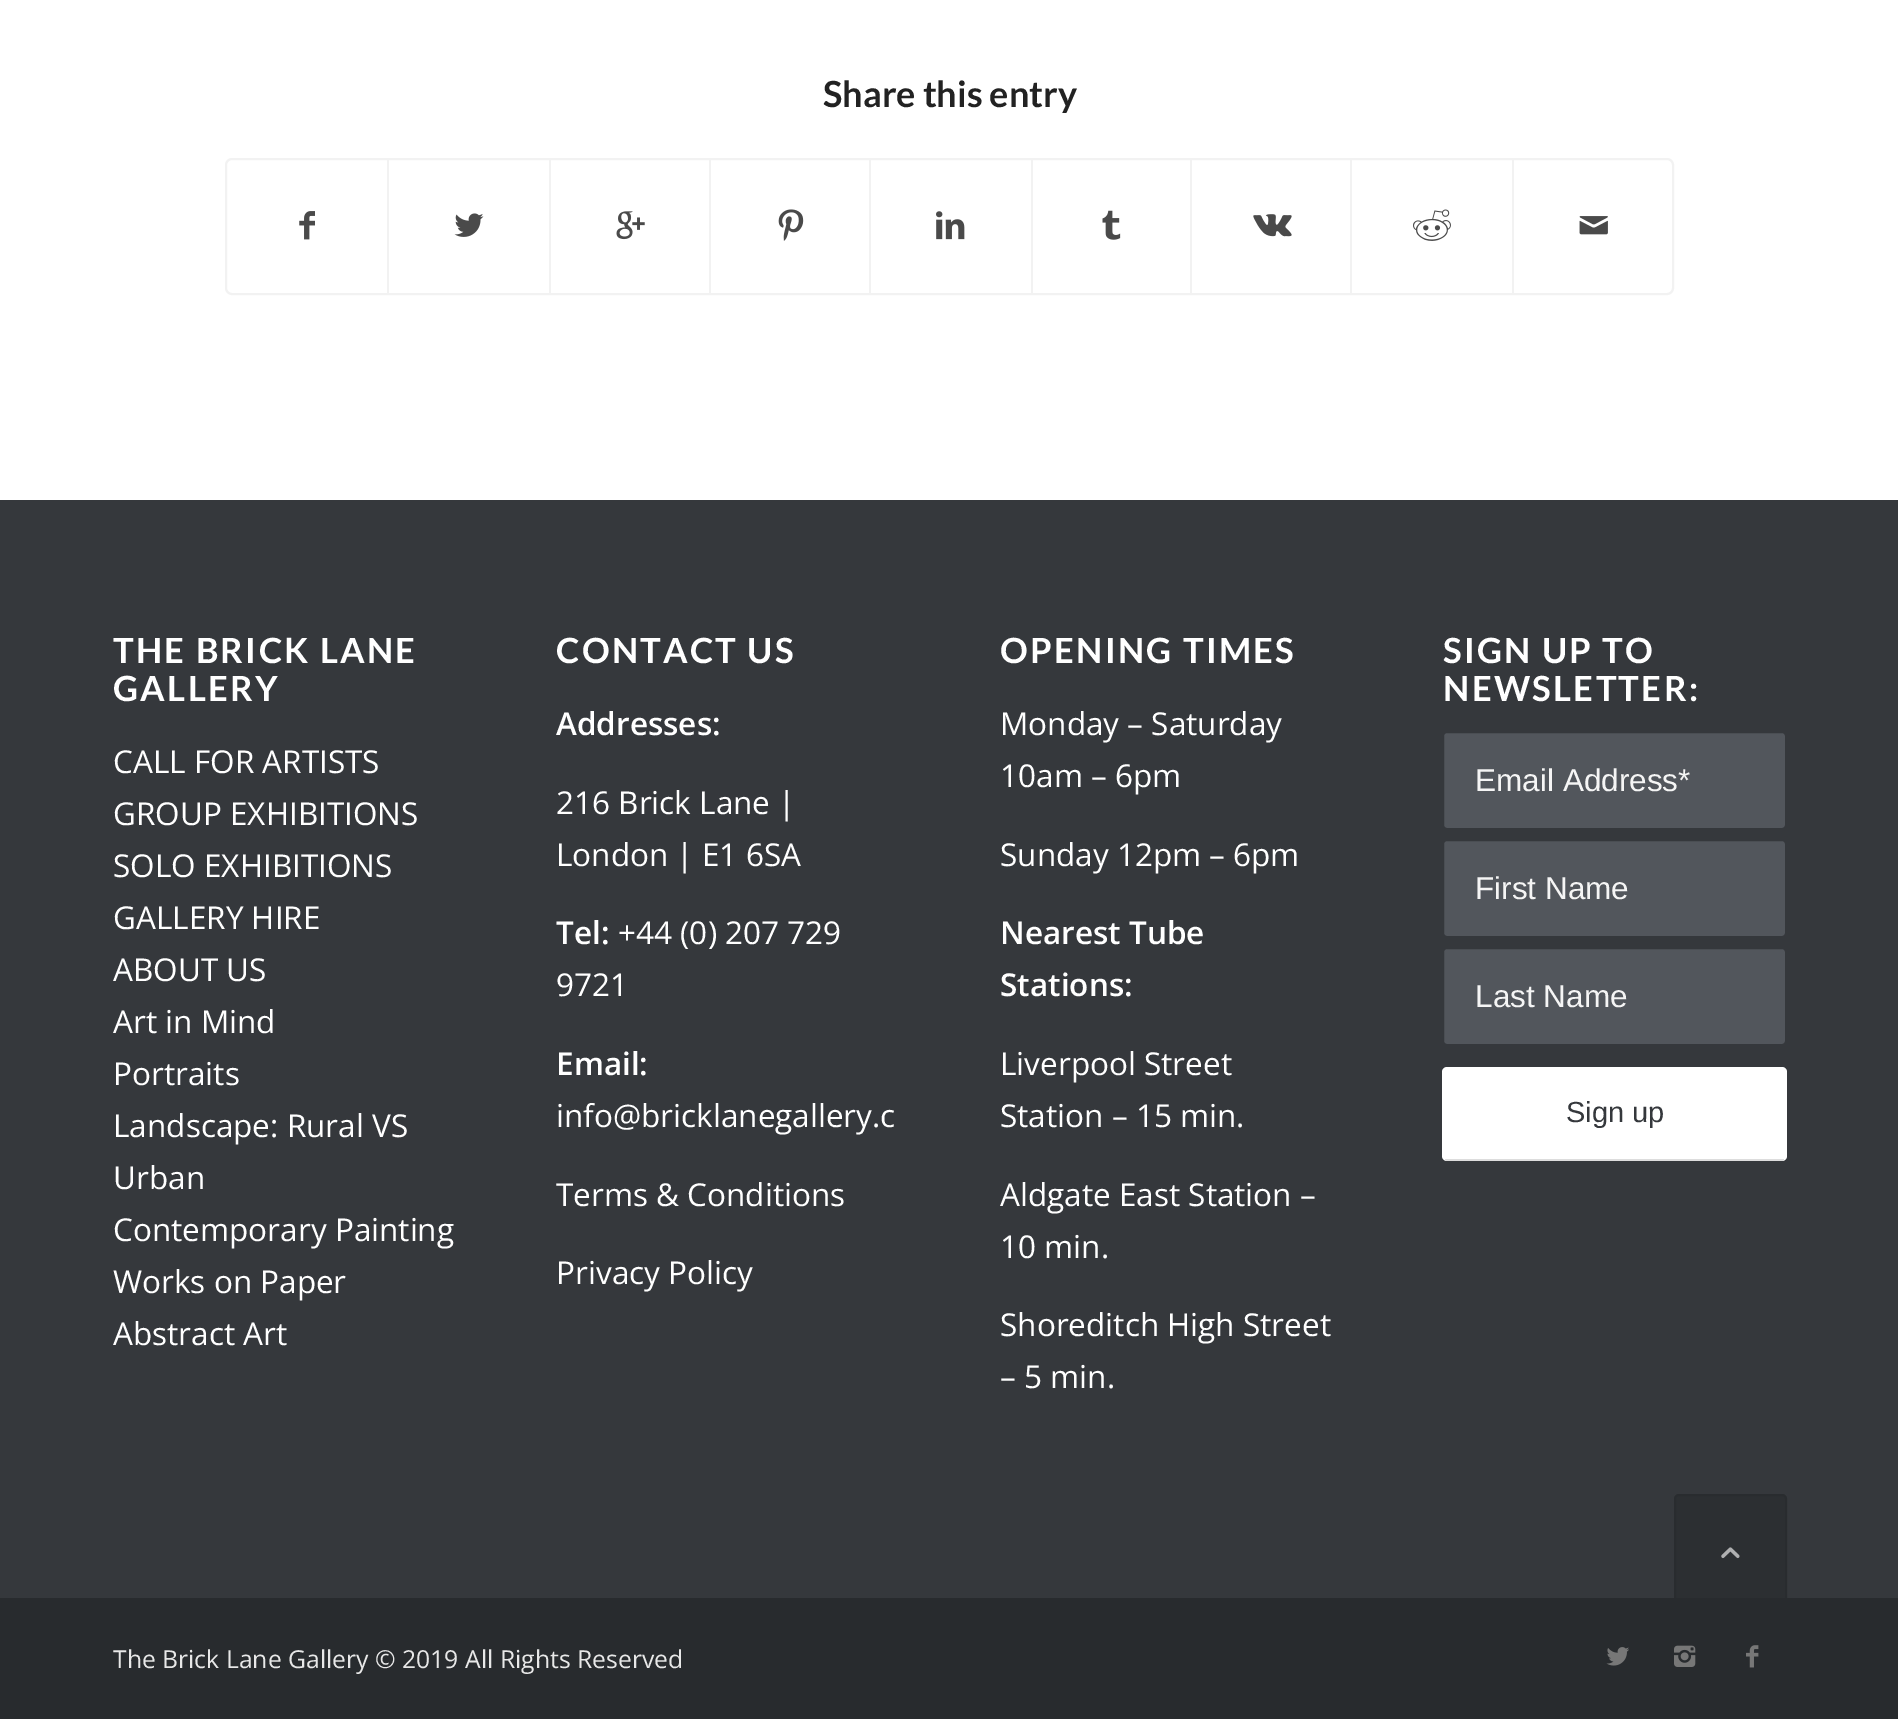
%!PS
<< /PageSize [1898 1719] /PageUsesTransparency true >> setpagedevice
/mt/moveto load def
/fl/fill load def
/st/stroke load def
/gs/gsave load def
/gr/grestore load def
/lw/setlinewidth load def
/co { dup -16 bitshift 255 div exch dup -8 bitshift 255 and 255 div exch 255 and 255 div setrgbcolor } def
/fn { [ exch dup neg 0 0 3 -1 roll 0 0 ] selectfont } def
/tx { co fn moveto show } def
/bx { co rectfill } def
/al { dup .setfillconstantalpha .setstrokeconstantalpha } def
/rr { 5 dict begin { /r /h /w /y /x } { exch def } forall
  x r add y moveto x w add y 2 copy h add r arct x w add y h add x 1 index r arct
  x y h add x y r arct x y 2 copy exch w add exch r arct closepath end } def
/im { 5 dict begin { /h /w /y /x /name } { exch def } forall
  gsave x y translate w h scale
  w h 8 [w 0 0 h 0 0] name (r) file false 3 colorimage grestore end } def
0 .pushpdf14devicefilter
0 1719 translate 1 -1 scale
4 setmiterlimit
0 0 1898 1719 16#FFFFFF bx
16#F2F2F2 co
2 lw
226 159 1447 135 6 rr st
(media/1.raw) 299 211 16 29 im
387 160 2 133 16#F2F2F2 bx
(media/2.raw) 454 213 30 24 im
549 160 2 133 16#F2F2F2 bx
(media/3.raw) 616 211 29 29 im
709 160 2 133 16#F2F2F2 bx
(media/4.raw) 778 209 26 32 im
869 160 2 133 16#F2F2F2 bx
(media/5.raw) 936 211 29 29 im
1031 160 2 133 16#F2F2F2 bx
(media/6.raw) 1102 210 19 30 im
1190 160 2 133 16#F2F2F2 bx
(media/7.raw) 1253 214 39 23 im
1350 160 2 133 16#F2F2F2 bx
(media/8.raw) 1413 209 38 32 im
1512 160 2 133 16#F2F2F2 bx
(media/9.raw) 1579 216 29 19 im
0 500 1898 1098 16#35383C bx
16#52565C co
1443 732 343 97 4 rr gs fl gr
16#35383C co
st
16#52565C co
1443 840 343 97 4 rr gs fl gr
16#35383C co
st
16#52565C co
1443 948 343 97 4 rr gs fl gr
16#35383C co
st
16#FFFFFF co
1442 1067 345 94 5 rr fl
1445 1159 339 2 16#DDDDDD bx
0 1598 1898 121 16#282B2E bx
(media/10.raw) 1606 1647 23 19 im
(media/11.raw) 1674 1645 22 22 im
(media/12.raw) 1746 1645 13 23 im
0.7 al
1674 1494 113 113 5 rr fl
1675 1495 111 111 4 rr st
1 al
(media/13.raw) 1721 1547 19 12 im
(Share this entry) 823 107 /Lato-Bold 36 16#222222 tx
gs
113 603 344 862 rectclip
/Lato-Bold 34.75 fn
16#FFFFFF co
113 663 mt 2.25 0 (THE BRICK LANE) ashow
gr
/Lato-Bold 34.75 fn
16#FFFFFF co
113 701 mt 2.25 0 (GALLERY) ashow
(CALL FOR ARTISTS) 113 773 /OpenSans-Regular 31.5 16#FFFFFF tx
(GROUP EXHIBITIONS) 113 825 /OpenSans-Regular 31.5 16#FFFFFF tx
(SOLO EXHIBITIONS) 113 877 /OpenSans-Regular 31.5 16#FFFFFF tx
(GALLERY HIRE) 113 929 /OpenSans-Regular 31.5 16#FFFFFF tx
(ABOUT US) 113 981 /OpenSans-Regular 31.5 16#FFFFFF tx
(Art in Mind) 113 1033 /OpenSans-Regular 31.5 16#FFFFFF tx
(Portraits) 113 1085 /OpenSans-Regular 31.5 16#FFFFFF tx
(Landscape: Rural VS) 113 1137 /OpenSans-Regular 31.5 16#FFFFFF tx
(Urban) 113 1189 /OpenSans-Regular 31.5 16#FFFFFF tx
(Contemporary Painting) 113 1241 /OpenSans-Regular 31.5 16#FFFFFF tx
(Works on Paper) 113 1293 /OpenSans-Regular 31.5 16#FFFFFF tx
(Abstract Art) 113 1345 /OpenSans-Regular 31.5 16#FFFFFF tx
/Lato-Bold 34.75 fn
556 663 mt 2.25 0 (CONTACT US) ashow
(Addresses:) 556 735 /OpenSans-SemiBold 31.5 16#FFFFFF tx
(216 Brick Lane |) 556 814 /OpenSans-Regular 31.5 16#FFFFFF tx
(London | E1 6SA) 556 866 /OpenSans-Regular 31.5 16#FFFFFF tx
(Tel:) 556 944 /OpenSans-SemiBold 31.5 16#FFFFFF tx
(+44 \(0\) 207 729) 618 944 /OpenSans-Regular 31.5 16#FFFFFF tx
(9721) 556 996 /OpenSans-Regular 31.5 16#FFFFFF tx
(Email:) 556 1075 /OpenSans-SemiBold 31.5 16#FFFFFF tx
(info@bricklanegallery.c) 556 1127 /OpenSans-Regular 31.5 16#FFFFFF tx
(Terms & Conditions) 556 1206 /OpenSans-Regular 31.5 16#FFFFFF tx
(Privacy Policy) 556 1284 /OpenSans-Regular 31.5 16#FFFFFF tx
/Lato-Bold 34.75 fn
1000 663 mt 2.25 0 (OPENING TIMES) ashow
(Monday – Saturday) 1000 735 /OpenSans-Regular 31.5 16#FFFFFF tx
(10am – 6pm) 1000 787 /OpenSans-Regular 31.5 16#FFFFFF tx
(Sunday 12pm – 6pm) 1000 866 /OpenSans-Regular 31.5 16#FFFFFF tx
(Nearest Tube) 1000 944 /OpenSans-SemiBold 31.5 16#FFFFFF tx
(Stations:) 1000 996 /OpenSans-SemiBold 31.5 16#FFFFFF tx
(Liverpool Street) 1000 1075 /OpenSans-Regular 31.5 16#FFFFFF tx
(Station – 15 min.) 1000 1127 /OpenSans-Regular 31.5 16#FFFFFF tx
(Aldgate East Station –) 1000 1206 /OpenSans-Regular 31.5 16#FFFFFF tx
(10 min.) 1000 1258 /OpenSans-Regular 31.5 16#FFFFFF tx
(Shoreditch High Street) 1000 1336 /OpenSans-Regular 31.5 16#FFFFFF tx
(– 5 min.) 1000 1388 /OpenSans-Regular 31.5 16#FFFFFF tx
/Lato-Bold 34.75 fn
1443 663 mt 2.25 0 (SIGN UP TO) ashow
1443 701 mt 2.25 0 (NEWSLETTER:) ashow
(Email Address*) 1475 791 /LiberationSans-Regular 31.5 16#F5F5F5 tx
(First Name) 1475 899 /LiberationSans-Regular 31.5 16#F5F5F5 tx
(Last Name) 1475 1007 /LiberationSans-Regular 31.5 16#F5F5F5 tx
(Sign up) 1566 1122 /LiberationSans-Regular 29 16#35383C tx
(The Brick Lane Gallery © 2019 All Rights Reserved) 113 1668 /OpenSans-Regular 24.75 16#E8E8E8 tx
.poppdf14devicefilter showpage
